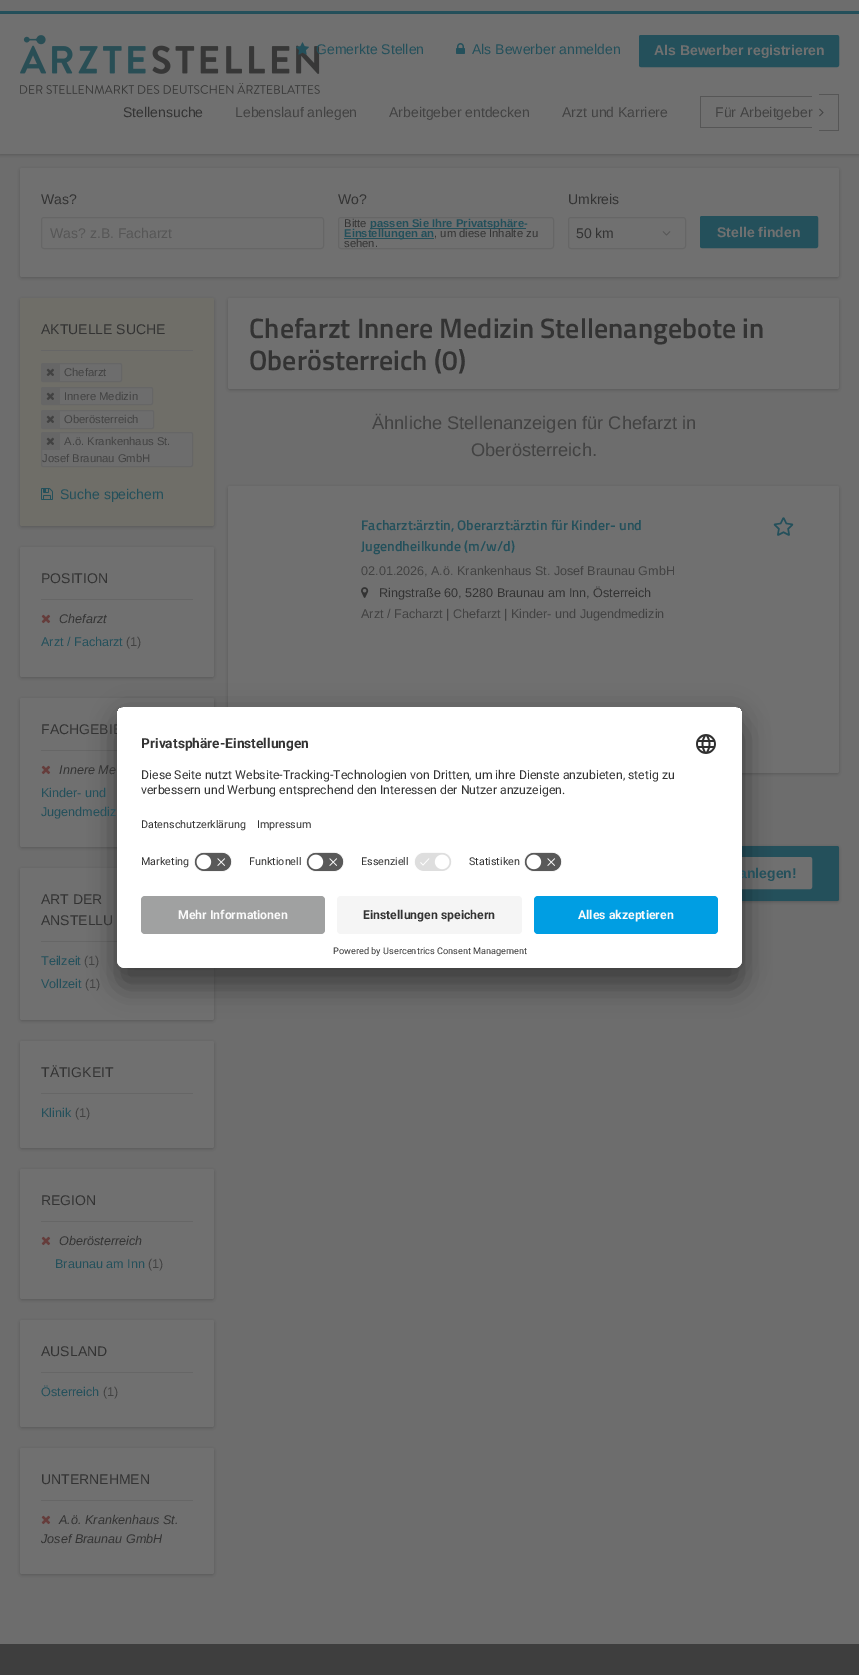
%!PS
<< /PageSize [859 1675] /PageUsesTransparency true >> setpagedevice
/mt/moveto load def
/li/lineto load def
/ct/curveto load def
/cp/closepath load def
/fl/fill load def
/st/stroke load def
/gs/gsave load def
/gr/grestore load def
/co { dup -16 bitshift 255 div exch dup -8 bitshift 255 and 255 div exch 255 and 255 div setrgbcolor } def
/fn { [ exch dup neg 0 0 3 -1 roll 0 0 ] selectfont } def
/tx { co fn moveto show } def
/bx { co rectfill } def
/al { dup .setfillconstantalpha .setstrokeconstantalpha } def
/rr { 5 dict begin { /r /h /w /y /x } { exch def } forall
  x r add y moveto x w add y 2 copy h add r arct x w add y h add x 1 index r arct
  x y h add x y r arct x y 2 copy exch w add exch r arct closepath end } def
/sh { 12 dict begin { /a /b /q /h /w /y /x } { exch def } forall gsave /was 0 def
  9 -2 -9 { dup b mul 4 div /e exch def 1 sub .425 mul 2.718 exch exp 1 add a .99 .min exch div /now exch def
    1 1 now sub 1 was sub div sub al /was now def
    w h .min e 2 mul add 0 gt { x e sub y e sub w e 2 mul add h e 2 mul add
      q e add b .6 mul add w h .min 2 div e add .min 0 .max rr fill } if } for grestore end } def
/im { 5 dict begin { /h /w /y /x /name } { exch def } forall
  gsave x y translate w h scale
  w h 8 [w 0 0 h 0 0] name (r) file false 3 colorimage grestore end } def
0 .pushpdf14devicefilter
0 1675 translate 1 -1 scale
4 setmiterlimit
0 0 859 1675 16#6D6D6D bx
0 11 859 3 16#24505B bx
16#242424 co
0 15 859 140 0 1.5 .25 sh
0 14 859 140 16#707070 bx
(media/1.raw) 20 35 300 59 im
(media/2.raw) 296 42 13 13 im
(media/3.raw) 456 43 9 11 im
16#24505B co
639.5 35.5 199 31 1.5 rr gs fl gr
st
700 96 112 1 16#565656 bx
700 127 112 1 16#565656 bx
700 96 1 32 16#565656 bx
819 94 20 1 16#565656 bx
838 94 1 37 16#565656 bx
819 130 20 1 16#565656 bx
(media/4.raw) 819 108 5 9 im
16#242424 co
20 169 819 109 2 1.5 .25 sh
16#707070 co
20 168 819 109 2 rr fl
16#666666 co
41.5 217.5 282 31 2.5 rr st
338.5 217.5 215 31 2.5 rr st
370 228 156 1 16#24505B bx
344 238 90 1 16#24505B bx
16#666666 co
568.5 217.5 117 31 2.5 rr st
(media/5.raw) 662 231 9 5 im
16#24505B co
700.5 216.5 117 31 1.5 rr gs fl gr
st
16#242424 co
20 299 194 228 2 1.5 .25 sh
16#6F6E68 co
20 298 194 228 2 rr fl
41 350 152 1 16#666666 bx
16#6D6D6D co
41.5 363.5 80 18 1.5 rr gs fl gr
16#666666 co
st
42 364 18 17 16#666666 bx
(media/6.raw) 46 368 8 8 im
16#6D6D6D co
41.5 387.5 111 17 1.5 rr gs fl gr
16#666666 co
st
42 388 18 16 16#666666 bx
(media/6.raw) 46 392 8 8 im
16#6D6D6D co
41.5 410.5 112 18 1.5 rr gs fl gr
16#666666 co
st
42 411 18 17 16#666666 bx
(media/6.raw) 46 415 8 8 im
16#6D6D6D co
41.5 432.5 151 34 1.5 rr gs fl gr
16#666666 co
st
42 433 18 17 16#666666 bx
(media/6.raw) 46 437 8 8 im
(media/7.raw) 41 488 12 12 im
16#242424 co
20 548 194 130 2 1.5 .25 sh
16#707070 co
20 547 194 130 2 rr fl
41 599 152 1 16#666666 bx
(media/8.raw) 41 614 10 10 im
16#242424 co
20 699 194 149 2 1.5 .25 sh
16#707070 co
20 698 194 149 2 rr fl
41 750 76 1 16#666666 bx
(media/8.raw) 41 765 10 10 im
16#242424 co
20 869 194 152 2 1.5 .25 sh
16#707070 co
20 868 194 152 2 rr fl
41 941 76 1 16#666666 bx
16#242424 co
20 1042 194 107 2 1.5 .25 sh
16#707070 co
20 1041 194 107 2 rr fl
41 1093 152 1 16#666666 bx
16#242424 co
20 1170 194 130 2 1.5 .25 sh
16#707070 co
20 1169 194 130 2 rr fl
41 1221 152 1 16#666666 bx
(media/8.raw) 41 1236 10 10 im
16#242424 co
20 1321 194 107 2 1.5 .25 sh
16#707070 co
20 1320 194 107 2 rr fl
41 1372 152 1 16#666666 bx
16#242424 co
20 1449 194 126 2 1.5 .25 sh
16#707070 co
20 1448 194 126 2 rr fl
41 1500 152 1 16#666666 bx
(media/8.raw) 41 1515 10 10 im
16#242424 co
228 299 611 91 2 1.5 .25 sh
16#707070 co
228 298 611 91 2 rr fl
16#242424 co
228 487 611 287 2 1.5 .25 sh
16#707070 co
228 486 611 287 2 rr fl
(media/9.raw) 361 587 8 11 im
(media/10.raw) 773 517 21 19 im
16#242424 co
228 847 611 55 2 1.5 .25 sh
16#24505B co
228 846 611 55 2 rr fl
16#707070 co
594.5 857.5 217 31 1.5 rr gs fl gr
st
0 1644 859 31 16#3E3E3E bx
16#000000 co
117 727 625 261 8 14 .3 sh
117 712 625 261 8 13 .22 sh
(Gemerkte Stellen) 316 54 /LiberationSans-Regular 14 16#24505B tx
(Als Bewerber anmelden) 472 54 /LiberationSans-Regular 14 16#24505B tx
(Als Bewerber registrieren) 654 55 /LiberationSans-Bold 14 16#707070 tx
(Stellensuche) 123 117 /LiberationSans-Regular 14 16#333333 tx
(Lebenslauf anlegen) 235 117 /LiberationSans-Regular 14 16#424242 tx
(Arbeitgeber entdecken) 389 117 /LiberationSans-Regular 14 16#424242 tx
(Arzt und Karriere) 562 117 /LiberationSans-Regular 14 16#424242 tx
(Für Arbeitgeber) 715 117 /LiberationSans-Regular 14 16#424242 tx
(Was?) 41 204 /LiberationSans-Regular 14 16#333333 tx
(Was? z.B. Facharzt) 50 238 /LiberationSans-Regular 14 16#565656 tx
(Wo?) 338 204 /LiberationSans-Regular 14 16#333333 tx
(Bitte) 344 227 /LiberationSans-Regular 11.25 16#333333 tx
(passen Sie Ihre Privatsphäre-) 370 227 /LiberationSans-Bold 11.25 16#24505B tx
(Einstellungen an) 344 237 /LiberationSans-Bold 11.25 16#24505B tx
(, um diese Inhalte zu) 434 237 /LiberationSans-Regular 11.25 16#333333 tx
(sehen.) 344 247 /LiberationSans-Regular 11.25 16#333333 tx
(Umkreis) 568 204 /LiberationSans-Regular 14 16#333333 tx
(50 km) 576 238 /LiberationSans-Regular 14 16#333333 tx
(Stelle finden) 717 237 /LiberationSans-Bold 14 16#707070 tx
(AKTUELLE SUCHE) 41 334 /LiberationSans-Regular 14 16#333333 tx
(Chefarzt) 64 376 /LiberationSans-Regular 11.25 16#424242 tx
(Innere Medizin) 64 400 /LiberationSans-Regular 11.25 16#424242 tx
(Oberösterreich) 64 423 /LiberationSans-Regular 11.25 16#424242 tx
(A.ö. Krankenhaus St.) 64 445 /LiberationSans-Regular 11.25 16#424242 tx
(Josef Braunau GmbH) 42 462 /LiberationSans-Regular 11.25 16#424242 tx
(Suche speichern) 60 499 /LiberationSans-Regular 14 16#24505B tx
(POSITION) 41 583 /LiberationSans-Regular 14 16#333333 tx
(Chefarzt) 59 623 /LiberationSans-Italic 12.6 16#333333 tx
(Arzt / Facharzt) 41 646 /LiberationSans-Regular 12.6 16#24505B tx
(\(1\)) 126 646 /LiberationSans-Regular 12.6 16#424242 tx
(FACHGEBIE) 41 734 /LiberationSans-Regular 14 16#333333 tx
(Innere Me) 59 774 /LiberationSans-Italic 12.6 16#333333 tx
(Kinder- und) 41 797 /LiberationSans-Regular 12.6 16#24505B tx
(Jugendmediz) 41 816 /LiberationSans-Regular 12.6 16#24505B tx
(ART DER) 41 904 /LiberationSans-Regular 14 16#333333 tx
(ANSTELLU) 41 925 /LiberationSans-Regular 14 16#333333 tx
(Teilzeit) 41 965 /LiberationSans-Regular 12.6 16#24505B tx
(\(1\)) 84 965 /LiberationSans-Regular 12.6 16#424242 tx
(Vollzeit) 41 988 /LiberationSans-Regular 12.6 16#24505B tx
(\(1\)) 85 988 /LiberationSans-Regular 12.6 16#424242 tx
(TÄTIGKEIT) 41 1077 /LiberationSans-Regular 14 16#333333 tx
(Klinik) 41 1117 /LiberationSans-Regular 12.6 16#24505B tx
(\(1\)) 75 1117 /LiberationSans-Regular 12.6 16#424242 tx
(REGION) 41 1205 /LiberationSans-Regular 14 16#333333 tx
(Oberösterreich) 59 1245 /LiberationSans-Italic 12.6 16#333333 tx
(Braunau am Inn) 55 1268 /LiberationSans-Regular 12.6 16#24505B tx
(\(1\)) 148 1268 /LiberationSans-Regular 12.6 16#424242 tx
(AUSLAND) 41 1356 /LiberationSans-Regular 14 16#333333 tx
(Österreich) 41 1396 /LiberationSans-Regular 12.6 16#24505B tx
(\(1\)) 103 1396 /LiberationSans-Regular 12.6 16#424242 tx
(UNTERNEHMEN) 41 1484 /LiberationSans-Regular 14 16#333333 tx
(A.ö. Krankenhaus St.) 59 1524 /LiberationSans-Italic 12.6 16#333333 tx
(Josef Braunau GmbH) 41 1543 /LiberationSans-Italic 12.6 16#333333 tx
(Chefarzt Innere Medizin Stellenangebote in) 249 338 /TitilliumWeb-SemiBold 28 16#333333 tx
(Oberösterreich \(0\)) 249 370 /TitilliumWeb-SemiBold 28 16#333333 tx
(Ähnliche Stellenanzeigen für Chefarzt in) 372 429 /LiberationSans-Regular 18.25 16#424242 tx
(Oberösterreich.) 471 456 /LiberationSans-Regular 18.25 16#424242 tx
(Facharzt:ärztin, Oberarzt:ärztin für Kinder- und) 361 530 /TitilliumWeb-SemiBold 14 16#24505B tx
(Jugendheilkunde \(m/w/d\)) 361 551 /TitilliumWeb-SemiBold 14 16#24505B tx
(02.01.2026, A.ö. Krankenhaus St. Josef Braunau GmbH) 361 575 /LiberationSans-Regular 12.6 16#424242 tx
(Ringstraße 60, 5280 Braunau am Inn, Österreich) 379 597 /LiberationSans-Regular 12.6 16#333333 tx
(Arzt / Facharzt | Chefarzt | Kinder- und Jugendmedizin) 361 618 /LiberationSans-Regular 12.6 16#424242 tx
(anlegen!) 739 878 /LiberationSans-Bold 14 16#24505B tx
16#FFFFFF co
117 707 625 261 8 rr fl
gs
117 707 625 261 8 rr clip newpath
125 707 mt 734 707 li 738.5 707 742 710.5 742 715 ct 742 888 li 117 888 li 117 715 li 117 710.5 120.5 707 125 707 ct cp clip newpath
117 708 625 180 16#FFFFFF bx
117 708 625 140 16#FFFFFF bx
gr
(Privatsphäre-Einstellungen) 141 748 /Roboto-Bold 13.75 16#333333 tx
(media/11.raw) 696 734 20 20 im
(Diese Seite nutzt Website-Tracking-Technologien von Dritten, um ihre Dienste anzubieten, stetig zu) 141 779 /Roboto-Regular 12.25 16#333333 tx
(verbessern und Werbung entsprechend den Interessen der Nutzer anzuzeigen.) 141 794 /Roboto-Regular 12.25 16#333333 tx
(Datenschutzerklärung) 141 828 /Roboto-Regular 10.75 16#333333 tx
(Impressum) 257 828 /Roboto-Regular 10.75 16#333333 tx
(Marketing) 141 865 /Roboto-Regular 10.75 16#333333 tx
(media/12.raw) 194 852 38 20 im
(Funktionell) 249 865 /Roboto-Regular 10.75 16#333333 tx
(media/12.raw) 306 852 38 20 im
(Essenziell) 361 865 /Roboto-Regular 10.75 16#333333 tx
(media/13.raw) 414 852 38 19 im
(Statistiken) 469 865 /Roboto-Regular 10.75 16#333333 tx
(media/12.raw) 524 852 38 20 im
16#FFFFFF co
117 888 mt 742 888 li 742 960 li 742 964.5 738.5 968 734 968 ct 125 968 li 120.5 968 117 964.5 117 960 ct cp fl
16#A0A1A1 co
141 896 184 38 4 rr fl
(Mehr Informationen) 178 919 /Roboto-Bold 12.25 16#FAFAFA tx
16#F5F5F5 co
337 896 185 38 4 rr fl
(Einstellungen speichern) 363 919 /Roboto-Bold 12.25 16#333333 tx
16#009EE3 co
534 896 184 38 4 rr fl
(Alles akzeptieren) 578 919 /Roboto-Bold 12.25 16#FAFAFA tx
(Powered by Usercentrics Consent Management) 333 954 /Roboto-Regular 9.2 16#333333 tx
.poppdf14devicefilter showpage
